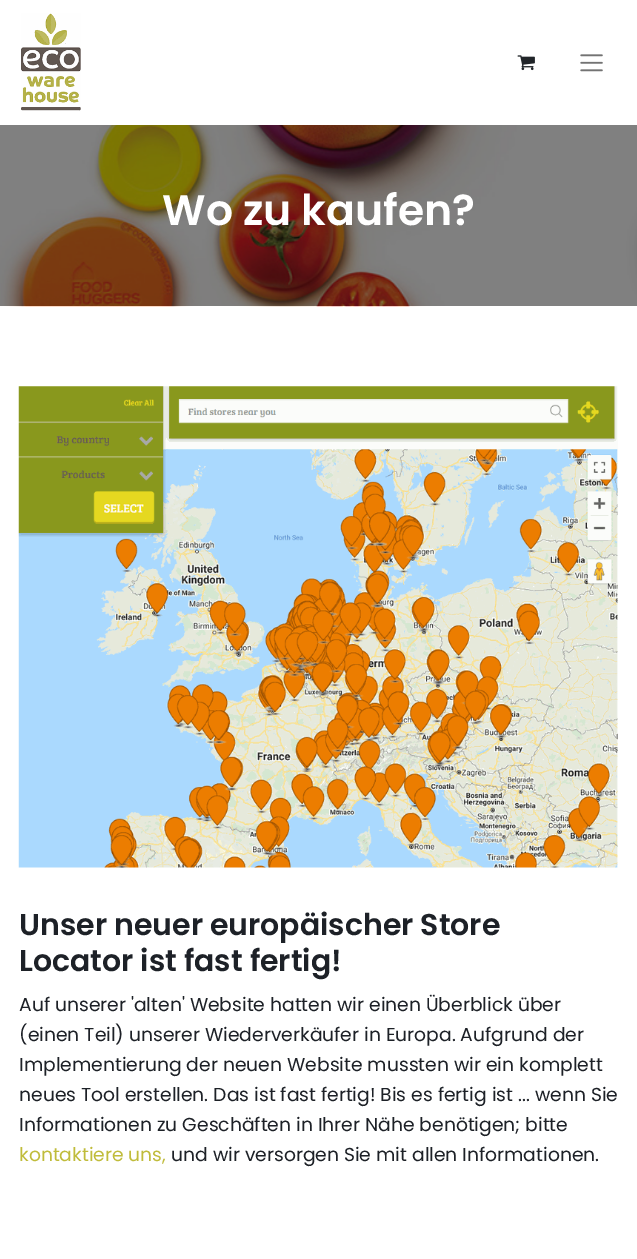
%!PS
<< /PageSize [637 1259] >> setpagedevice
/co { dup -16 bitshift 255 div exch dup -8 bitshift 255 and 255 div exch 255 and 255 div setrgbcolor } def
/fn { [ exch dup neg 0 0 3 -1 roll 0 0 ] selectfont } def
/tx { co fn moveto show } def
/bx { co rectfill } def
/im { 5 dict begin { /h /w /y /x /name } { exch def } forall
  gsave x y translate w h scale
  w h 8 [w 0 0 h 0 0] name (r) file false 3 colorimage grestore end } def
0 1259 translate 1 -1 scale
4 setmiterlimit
0 0 637 1259 16#FFFFFF bx
(media/1.raw) 21 13 60 98 im
(media/2.raw) 517 55 18 16 im
(media/3.raw) 580 54 23 18 im
(media/4.raw) 0 125 637 182 im
(media/5.raw) 18 386 600 482 im
(Wo zu kaufen?) 162 225 /Poppins-SemiBold 42.5 16#FFFFFF tx
(Unser neuer europäischer Store) 19 935 /Poppins-SemiBold 30 16#1D2127 tx
(Locator ist fast fertig!) 19 971 /Poppins-SemiBold 30 16#1D2127 tx
(Auf unserer 'alten' Website hatten wir einen Überblick über) 19 1011 /Poppins-Regular 18.75 16#1D2127 tx
(\(einen Teil\) unserer Wiederverkäufer in Europa. Aufgrund der) 19 1041 /Poppins-Regular 18.75 16#1D2127 tx
(Implementierung der neuen Website mussten wir ein komplett) 19 1071 /Poppins-Regular 18.75 16#1D2127 tx
(neues Tool erstellen. Das ist fast fertig! Bis es fertig ist ... wenn Sie) 19 1101 /Poppins-Regular 18.75 16#1D2127 tx
(Informationen zu Geschäften in Ihrer Nähe benötigen; bitte) 19 1131 /Poppins-Regular 18.75 16#1D2127 tx
(kontaktiere uns,) 19 1161 /Poppins-Regular 18.75 16#C0BC3B tx
(und wir versorgen Sie mit allen Informationen.) 171 1161 /Poppins-Regular 18.75 16#1D2127 tx
showpage
